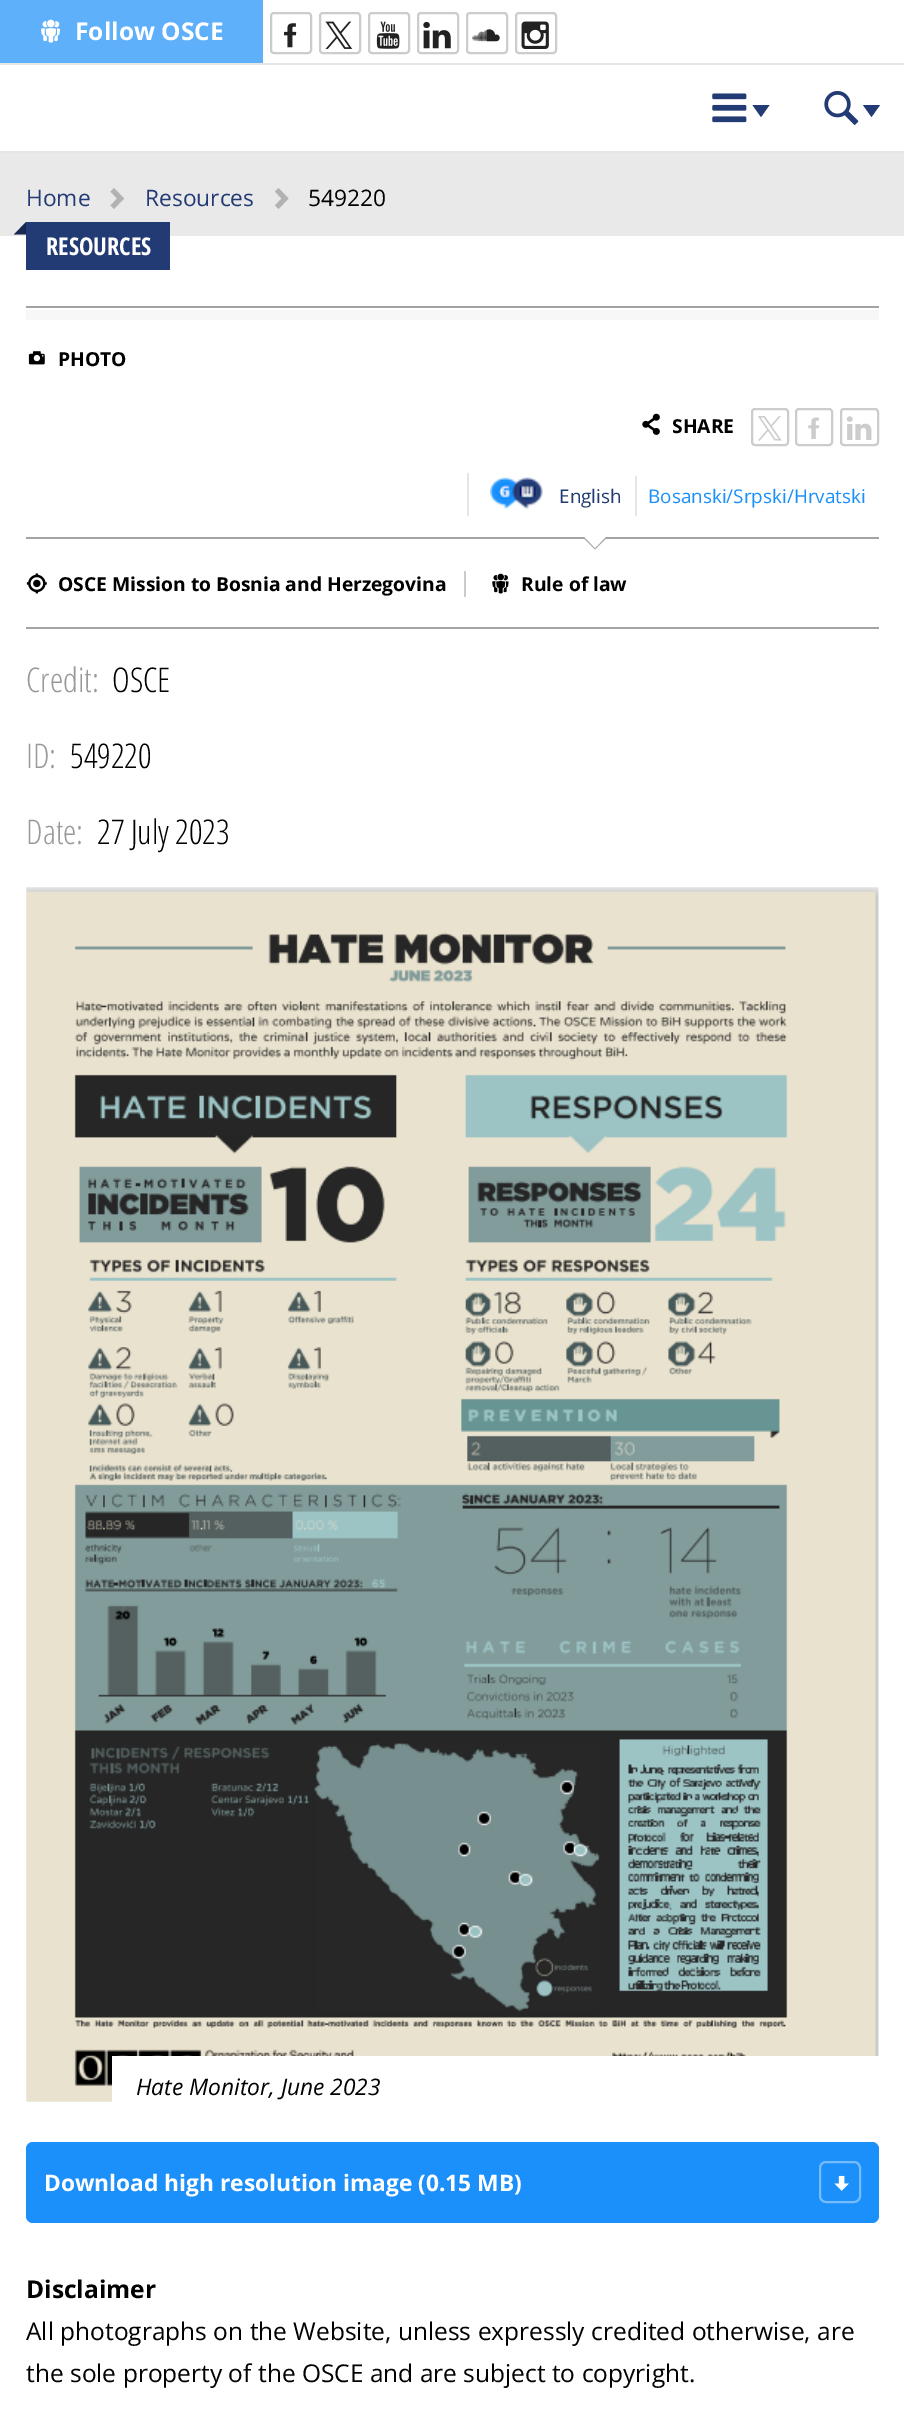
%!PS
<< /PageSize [904 2411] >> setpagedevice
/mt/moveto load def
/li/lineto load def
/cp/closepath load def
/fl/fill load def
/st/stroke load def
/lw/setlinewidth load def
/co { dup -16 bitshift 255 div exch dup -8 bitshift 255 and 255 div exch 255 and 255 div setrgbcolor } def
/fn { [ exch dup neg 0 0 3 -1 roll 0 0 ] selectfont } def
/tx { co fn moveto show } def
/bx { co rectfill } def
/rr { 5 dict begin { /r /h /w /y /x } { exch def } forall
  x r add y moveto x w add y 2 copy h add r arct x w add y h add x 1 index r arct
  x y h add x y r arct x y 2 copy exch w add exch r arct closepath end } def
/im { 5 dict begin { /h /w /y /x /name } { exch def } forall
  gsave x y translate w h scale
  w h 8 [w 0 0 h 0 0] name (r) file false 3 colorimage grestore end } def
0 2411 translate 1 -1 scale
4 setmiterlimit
0 0 904 2411 16#FFFFFF bx
0 0 263 63 16#5FB0FB bx
(media/1.raw) 41 19 19 24 im
16#CCCCCC co
2 lw
271 13 40 40 3 rr st
(media/2.raw) 284 23 13 25 im
320 13 40 40 3 rr st
(media/3.raw) 325 21 28 28 im
369 13 40 40 3 rr st
(media/4.raw) 376 21 24 28 im
418 13 40 40 3 rr st
(media/5.raw) 423 21 28 28 im
467 13 40 40 3 rr st
(media/6.raw) 472 29 28 13 im
516 13 40 40 3 rr st
(media/7.raw) 521 21 28 28 im
0 63 904 2 16#E5E5E5 bx
(media/8.raw) 712 93 35 30 im
16#233B74 co
752.5 105 mt 769.5 105 li 761 117 li cp fl
(media/9.raw) 824 91 35 34 im
863 105 mt 880 105 li 871.5 117 li cp fl
0 153 904 83 16#E9E9E9 bx
0 151 904 2 16#E5E5E5 bx
16#B2B2B2 co
114 209 mt 110.5 205.5 li 117 198.5 li 110.5 191.5 li 114 188 li 124 198.5 li cp fl
278.5 209 mt 275 205.5 li 281.5 198.5 li 275 191.5 li 278.5 188 li 288.5 198.5 li cp fl
26 222 144 48 16#233B74 bx
16#182951 co
26 234.5 mt 14 234.5 li 26 222 li cp fl
26 306 853 2 16#A3A3A3 bx
26 537 853 2 16#A3A3A3 bx
26 310 853 10 16#F7F7F7 bx
(media/10.raw) 28 351 17 14 im
(media/11.raw) 642 413 18 22 im
16#CCCCCC co
752 409 36 36 3 rr st
(media/12.raw) 758 416 24 25 im
796 409 36 36 3 rr st
(media/13.raw) 808 417 12 22 im
841 409 37 36 3 rr st
(media/14.raw) 846 416 26 24 im
467 473 2 43 16#E5E5E5 bx
(media/15.raw) 490 477 53 33 im
635 476 2 40 16#E5E5E5 bx
16#A3A3A3 co
584.5 539 mt 605.5 539 li 595 549.5 li cp fl
16#FFFFFF co
584.5 537 mt 605.5 537 li 595 548 li cp fl
26 627 853 2 16#A3A3A3 bx
(media/16.raw) 26 573 21 21 im
464 571 2 26 16#CCCCCC bx
(media/17.raw) 492 573 17 21 im
(media/18.raw) 26 887 853 1215 im
112 2056 767 46 16#FFFFFF bx
16#1B8FFA co
26 2142 853 81 7 rr fl
16#76BBFC co
820 2162 40 40 6 rr st
(media/19.raw) 834 2175 15 16 im
(Follow OSCE) 75 40 /OpenSans-Bold 24.5 16#FFFFFF tx
(Home) 26 206 /OpenSans-Regular 22.75 16#233B74 tx
(Resources) 145 206 /OpenSans-Regular 22.75 16#233B74 tx
(549220) 308 206 /OpenSans-Regular 22.75 16#000000 tx
(RESOURCES) 46 255 /OpenSansCondensed-Bold 24.5 16#FFFFFF tx
(PHOTO) 58 366 /OpenSans-Bold 19.25 16#000000 tx
(SHARE) 672 433 /OpenSans-Bold 19.25 16#000000 tx
(English) 559 503 /OpenSans-Regular 18.9 16#233B74 tx
(Bosanski/Srpski/Hrvatski) 648 503 /OpenSans-Regular 18.9 16#1B8FFA tx
(OSCE Mission to Bosnia and Herzegovina) 58 591 /OpenSans-Bold 19.25 16#000000 tx
(Rule of law) 521 591 /OpenSans-Bold 19.25 16#000000 tx
(Credit:) 26 692 /OpenSansCondensed-Light 34 16#999999 tx
(OSCE) 112 692 /OpenSansCondensed-Light 34 16#000000 tx
(ID:) 26 768 /OpenSansCondensed-Light 34 16#999999 tx
(549220) 70 768 /OpenSansCondensed-Light 34 16#000000 tx
(Date:) 26 844 /OpenSansCondensed-Light 34 16#999999 tx
(27 July 2023) 97 844 /OpenSansCondensed-Light 34 16#000000 tx
(Hate Monitor, June 2023) 136 2095 /OpenSans-Italic 22.75 16#000000 tx
(Download high resolution image \(0.15 MB\)) 44 2191 /OpenSans-Bold 22.75 16#FFFFFF tx
(Disclaimer) 26 2298 /OpenSans-Bold 24.5 16#000000 tx
(All photographs on the Website, unless expressly credited otherwise, are) 26 2340 /OpenSans-Regular 24.5 16#000000 tx
(the sole property of the OSCE and are subject to copyright.) 26 2382 /OpenSans-Regular 24.5 16#000000 tx
showpage
